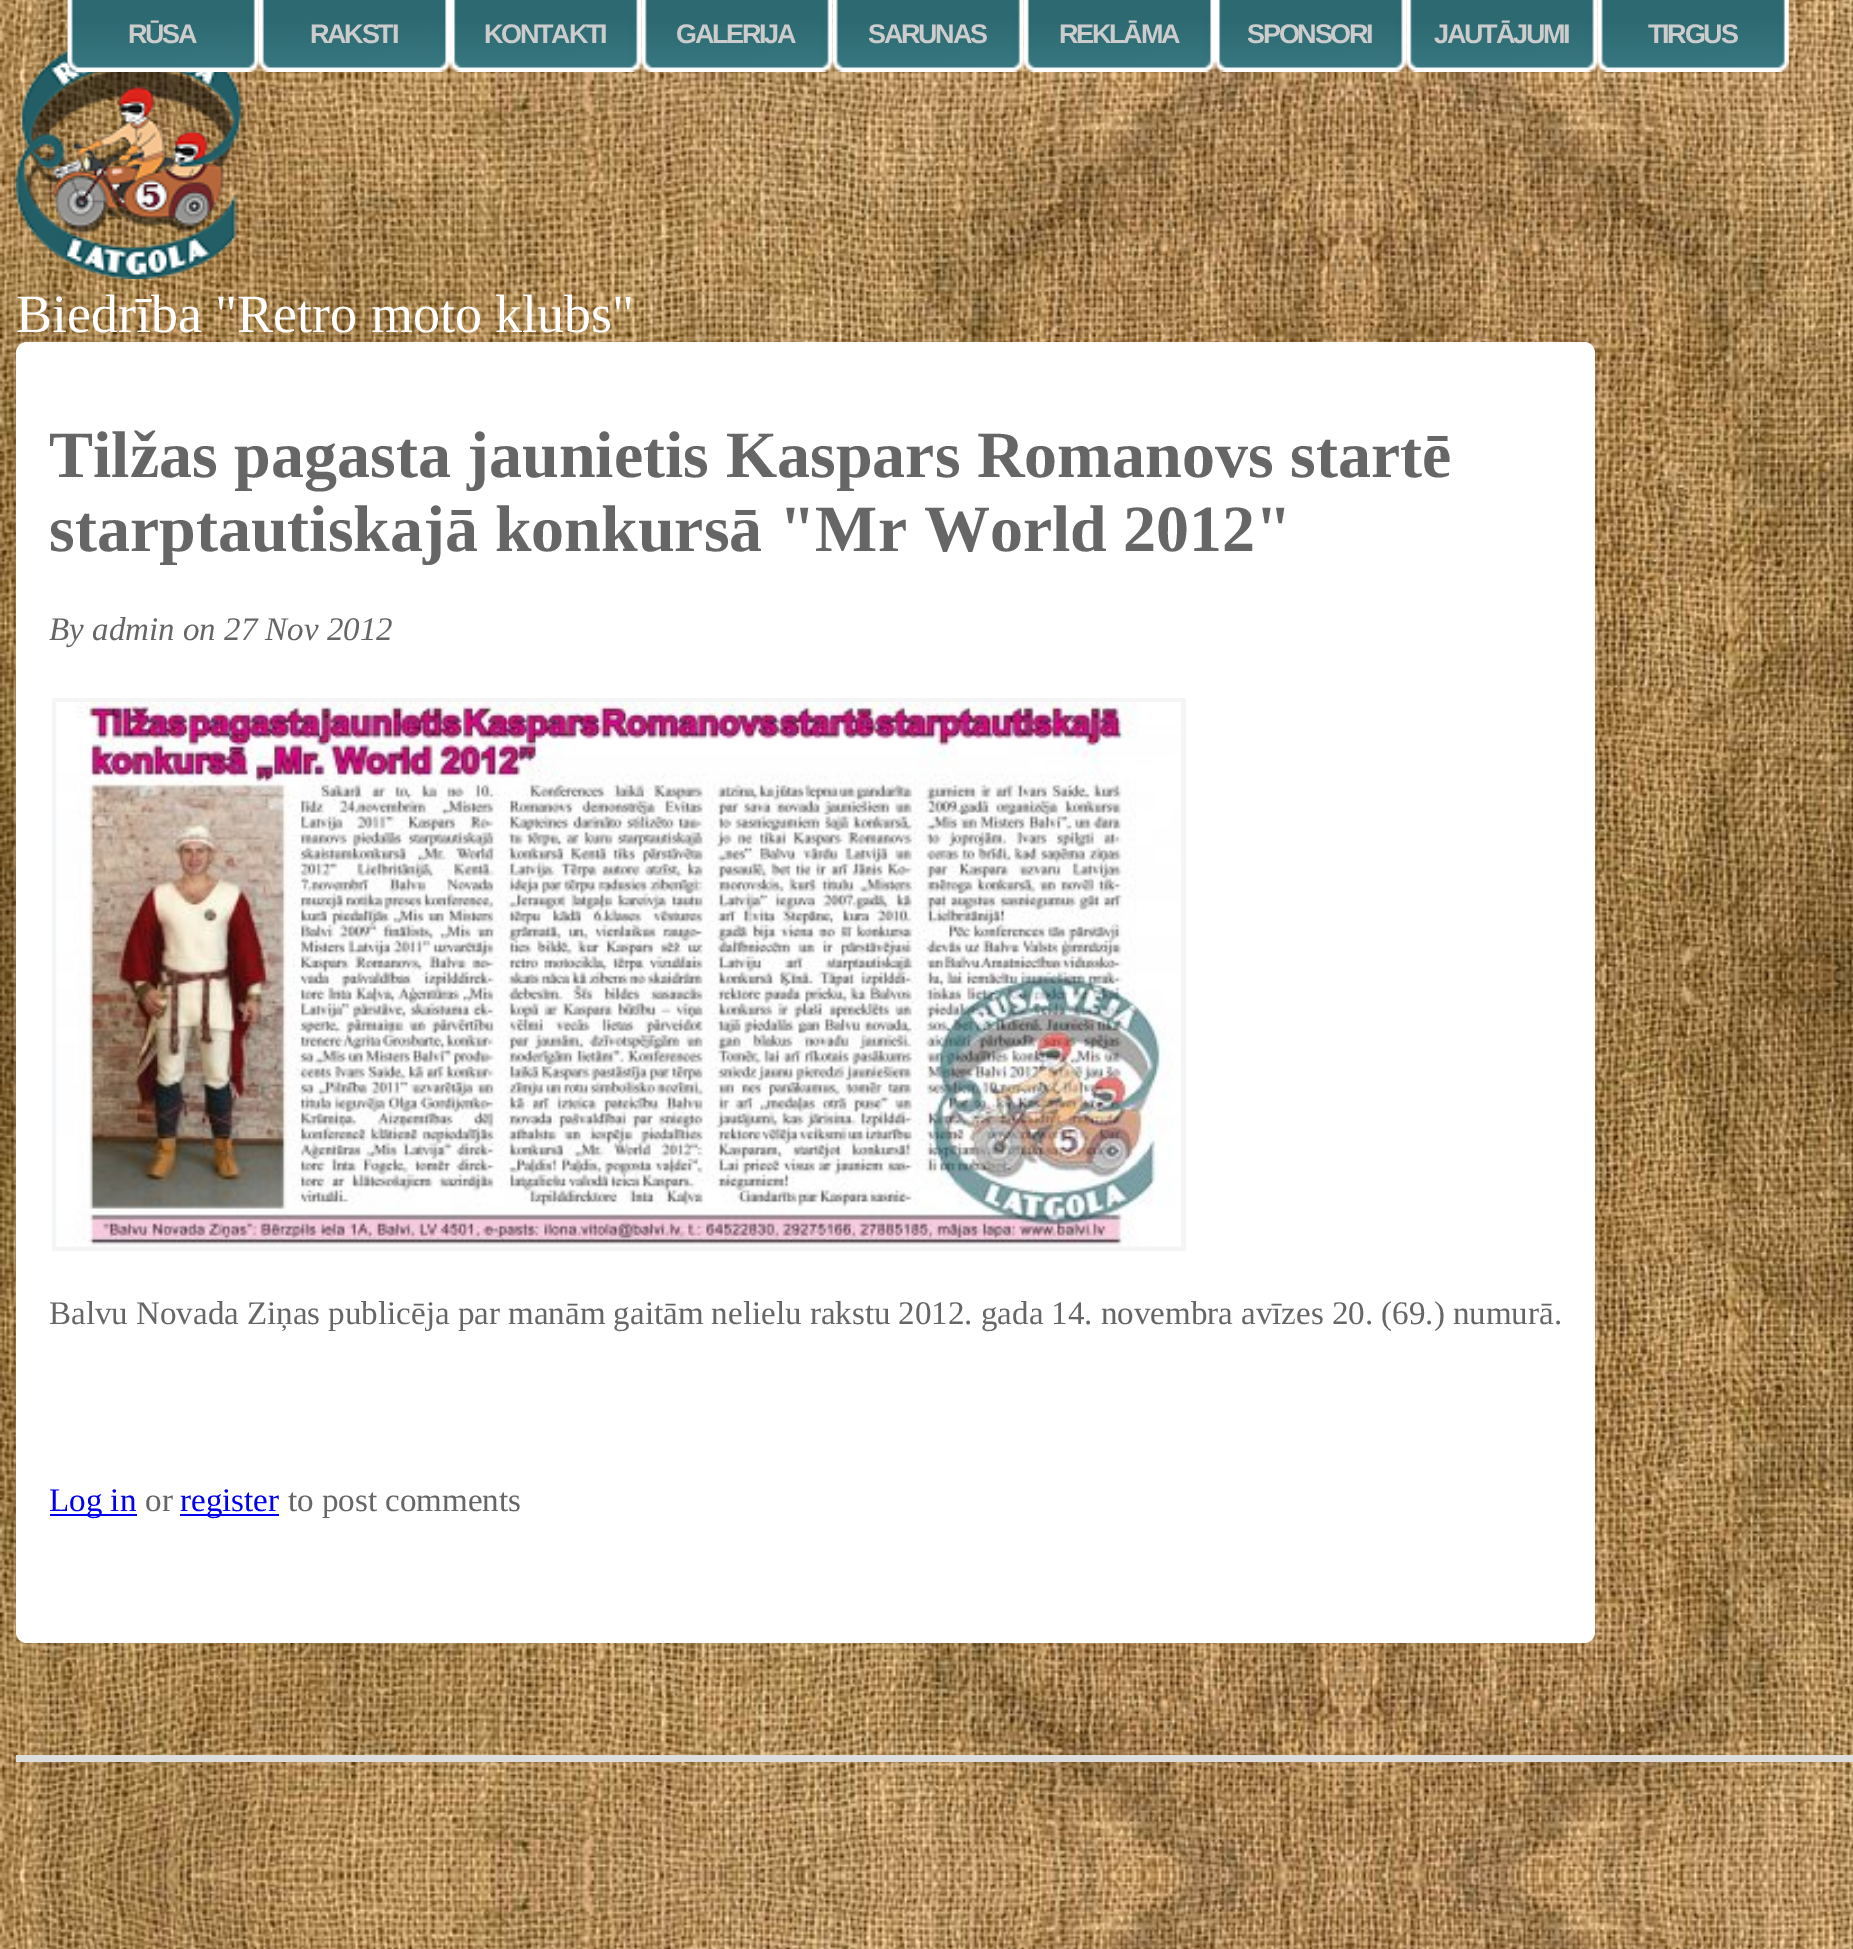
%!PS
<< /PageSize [1853 1949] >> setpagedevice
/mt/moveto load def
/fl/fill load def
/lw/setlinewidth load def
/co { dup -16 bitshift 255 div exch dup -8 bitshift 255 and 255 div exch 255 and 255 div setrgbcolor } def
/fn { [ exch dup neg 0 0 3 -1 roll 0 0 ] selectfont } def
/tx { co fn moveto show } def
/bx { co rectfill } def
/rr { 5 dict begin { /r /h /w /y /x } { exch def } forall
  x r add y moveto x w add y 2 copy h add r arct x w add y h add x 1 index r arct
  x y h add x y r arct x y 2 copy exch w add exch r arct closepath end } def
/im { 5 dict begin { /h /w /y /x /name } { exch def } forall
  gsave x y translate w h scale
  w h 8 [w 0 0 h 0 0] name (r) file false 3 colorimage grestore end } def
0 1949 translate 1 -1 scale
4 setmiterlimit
0 0 1853 1949 16#FFFFFF bx
(media/1.raw) 0 0 1853 1949 im
(media/11.raw) 15 49 226 230 im
(media/2.raw) 67 0 192 72 im
(media/3.raw) 258 0 192 72 im
(media/4.raw) 450 0 192 72 im
(media/5.raw) 641 0 192 72 im
(media/6.raw) 832 0 192 72 im
(media/7.raw) 1023 0 192 72 im
(media/8.raw) 1215 0 192 72 im
(media/9.raw) 1406 0 192 72 im
(media/10.raw) 1597 0 192 72 im
16 342 1579 1301 11 rr fl
16#F5F5F5 co
5 lw
54.5 700.5 1129 548 rectstroke
(media/12.raw) 56 702 1125 545 im
50 1514 87 2 16#0000EE bx
180 1514 99 2 16#0000EE bx
16 1755 1837 7 16#DDDDDD bx
/LiberationSans-Bold 27 fn
16#CCCCCC co
128 43 mt -2.25 0 (RŪSA) ashow
310 43 mt -2.25 0 (RAKSTI) ashow
484 43 mt -2.25 0 (KONTAKTI) ashow
676 43 mt -2.25 0 (GALERIJA) ashow
868 43 mt -2.25 0 (SARUNAS) ashow
1059 43 mt -2.25 0 (REKLĀMA) ashow
1247 43 mt -2.25 0 (SPONSORI) ashow
1434 43 mt -2.25 0 (JAUTĀJUMI) ashow
1648 43 mt -2.25 0 (TIRGUS) ashow
(Biedrība "Retro moto klubs") 16 332 /LiberationSerif-Regular 54 16#FFFFFF tx
(Tilžas pagasta jaunietis Kaspars Romanovs startē) 49 477 /LiberationSerif-Bold 66 16#666666 tx
(starptautiskajā konkursā "Mr World 2012") 49 551 /LiberationSerif-Bold 66 16#666666 tx
(By admin on 27 Nov 2012) 49 640 /LiberationSerif-Italic 33 16#666666 tx
(Balvu Novada Ziņas publicēja par manām gaitām nelielu rakstu 2012. gada 14. novembra avīzes 20. \(69.\) numurā.) 49 1324 /LiberationSerif-Regular 33 16#666666 tx
(Log in) 49 1511 /LiberationSerif-Regular 33 16#0000EE tx
(or) 145 1511 /LiberationSerif-Regular 33 16#666666 tx
(register) 180 1511 /LiberationSerif-Regular 33 16#0000EE tx
(to post comments) 288 1511 /LiberationSerif-Regular 33 16#666666 tx
showpage
